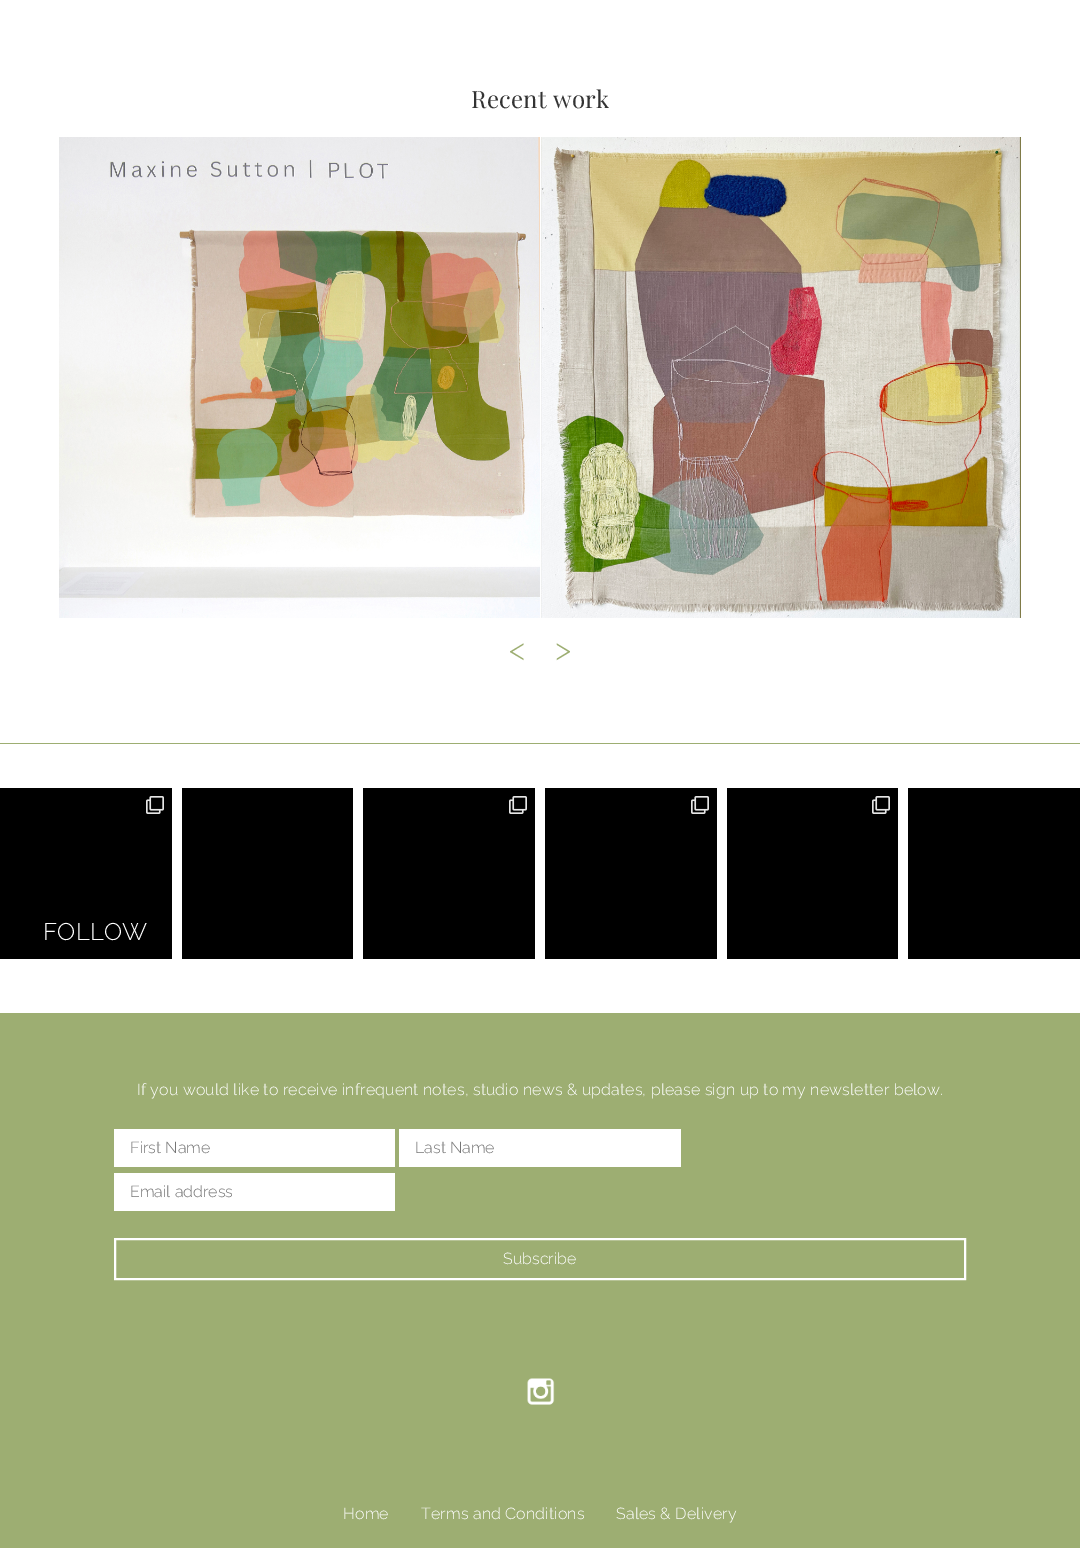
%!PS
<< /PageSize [1080 1548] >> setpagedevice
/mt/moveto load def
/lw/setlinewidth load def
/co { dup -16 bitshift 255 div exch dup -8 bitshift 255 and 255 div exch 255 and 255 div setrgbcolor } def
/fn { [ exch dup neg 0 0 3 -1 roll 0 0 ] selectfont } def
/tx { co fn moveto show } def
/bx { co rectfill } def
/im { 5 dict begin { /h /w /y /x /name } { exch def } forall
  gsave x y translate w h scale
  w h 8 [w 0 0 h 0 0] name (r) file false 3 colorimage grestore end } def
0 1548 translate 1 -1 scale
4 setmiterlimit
0 0 1080 1548 16#FFFFFF bx
(media/1.raw) 59 137 481 481 im
(media/2.raw) 541 137 480 481 im
0 743 1080 1 16#9DAE72 bx
0 788 172 171 16#000000 bx
(media/3.raw) 146 796 18 18 im
182 788 171 171 16#000000 bx
363 788 172 171 16#000000 bx
(media/3.raw) 509 796 18 18 im
545 788 172 171 16#000000 bx
(media/3.raw) 691 796 18 18 im
727 788 171 171 16#000000 bx
(media/3.raw) 872 796 18 18 im
908 788 172 171 16#000000 bx
0 1013 1080 535 16#9DAE72 bx
114 1129 281 38 16#FFFFFF bx
399 1129 282 38 16#FFFFFF bx
114 1173 281 38 16#FFFFFF bx
2 lw
115 1239 850 40 rectstroke
(media/4.raw) 527 1378 28 27 im
/PlayfairDisplay-Regular 24 fn
16#333333 co
471 108 mt .25 0 (Recent work) ashow
(<) 509 660 /Raleway-Light 32 16#9DAE72 tx
(>) 555 660 /Raleway-Light 32 16#9DAE72 tx
/Raleway-Light 24 fn
16#FFFFFF co
43 940 mt .16 0 (FOLLOW) ashow
/Raleway-Light 16 fn
137 1095 mt .16 0 (If you would like to receive infrequent notes, studio news & updates, please sign up to my newsletter below.) ashow
(First Name) 130 1153 /Raleway-Light 16 16#757575 tx
(Last Name) 415 1153 /Raleway-Light 16 16#757575 tx
(Email address) 130 1197 /Raleway-Light 16 16#757575 tx
(Subscribe) 503 1264 /Raleway-Light 16 16#FFFFFF tx
343 1519 mt .16 0 (Home) ashow
421 1519 mt .16 0 (Terms and Conditions) ashow
616 1519 mt .16 0 (Sales & Delivery) ashow
showpage
